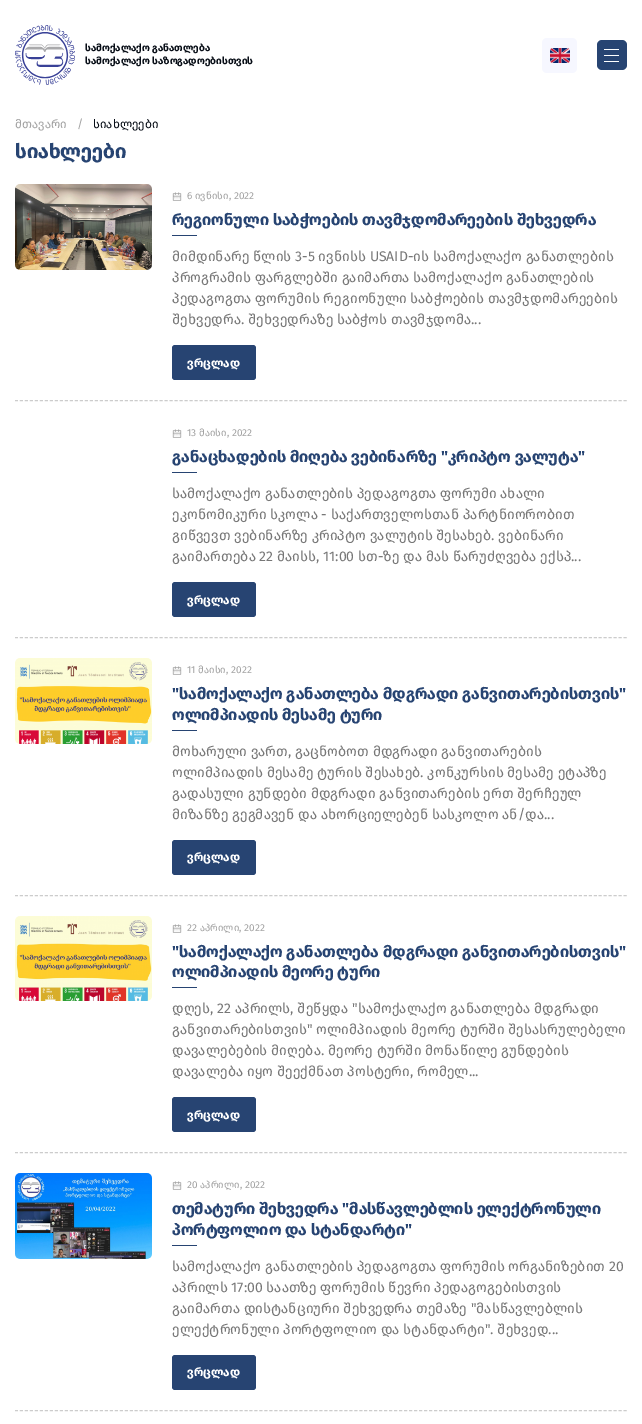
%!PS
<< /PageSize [642 1424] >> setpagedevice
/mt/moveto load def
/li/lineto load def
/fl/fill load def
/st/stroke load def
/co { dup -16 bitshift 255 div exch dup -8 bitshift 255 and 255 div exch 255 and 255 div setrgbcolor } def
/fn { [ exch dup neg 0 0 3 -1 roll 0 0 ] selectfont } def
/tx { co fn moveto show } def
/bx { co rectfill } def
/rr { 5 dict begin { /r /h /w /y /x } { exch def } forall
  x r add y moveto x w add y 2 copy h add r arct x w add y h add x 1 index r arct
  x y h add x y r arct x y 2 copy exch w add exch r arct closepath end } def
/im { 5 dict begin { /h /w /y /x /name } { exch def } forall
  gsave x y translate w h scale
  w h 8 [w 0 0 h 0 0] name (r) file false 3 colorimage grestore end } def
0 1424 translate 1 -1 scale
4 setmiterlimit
0 0 642 1424 16#FFFFFF bx
(media/1.raw) 15 25 60 60 im
16#F6F7FF co
542 38 35 35 5 rr fl
(media/2.raw) 550 48 20 15 im
16#274472 co
597 40 30 30 5 rr fl
604 49 15 1 16#FFFFFF bx
604 55 15 1 16#FFFFFF bx
604 61 15 1 16#FFFFFF bx
16#CCCCCC co
[3 1.99] 0 setdash
15 400.5 mt 627 400.5 li st
(media/3.raw) 15 184 137 86 im
(media/4.raw) 172 192 10 9 im
172 235 25 1 16#274472 bx
172 345 84 35 3 rr fl
16#CCCCCC co
15 637.5 mt 627 637.5 li st
(media/4.raw) 172 429 10 9 im
172 472 25 1 16#274472 bx
172 582 84 35 3 rr fl
16#CCCCCC co
15 895.5 mt 627 895.5 li st
(media/5.raw) 15 658 137 86 im
(media/4.raw) 172 666 10 9 im
172 730 25 1 16#274472 bx
172 840 84 35 3 rr fl
16#CCCCCC co
15 1152.5 mt 627 1152.5 li st
(media/6.raw) 15 916 137 85 im
(media/4.raw) 172 924 10 9 im
172 987 25 1 16#274472 bx
172 1097 84 35 3 rr fl
16#CCCCCC co
15 1410.5 mt 627 1410.5 li st
(media/7.raw) 15 1173 137 86 im
(media/4.raw) 172 1181 10 9 im
172 1245 25 1 16#274472 bx
172 1355 84 35 3 rr fl
(სამოქალაქო განათლება) 85 51 /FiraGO-Bold 10 16#070D16 tx
(სამოქალაქო საზოგადოებისთვის) 85 64 /FiraGO-Bold 10 16#070D16 tx
(მთავარი) 15 128 /FiraGO-Regular 12 16#A3A3A3 tx
(/) 77 128 /FiraGO-Regular 12 16#A3A3A3 tx
(სიახლეები) 93 128 /FiraGO-Regular 12 16#070D16 tx
(სიახლეები) 15 158 /FiraGO-Bold 20 16#274472 tx
(6 ივნისი, 2022) 187 199 /FiraGO-Regular 10 16#A3A3A3 tx
(რეგიონული საბჭოების თავმჯდომარეების შეხვედრა) 172 225 /FiraGO-Bold 16 16#274472 tx
(მიმდინარე წლის 3-5 ივნისს USAID-ის სამოქალაქო განათლების) 172 261 /FiraGO-Regular 14 16#777777 tx
(პროგრამის ფარგლებში გაიმართა სამოქალაქო განათლების) 172 282 /FiraGO-Regular 14 16#777777 tx
(პედაგოგთა ფორუმის რეგიონული საბჭოების თავმჯდომარეების) 172 303 /FiraGO-Regular 14 16#777777 tx
(შეხვედრა. შეხვედრაზე საბჭოს თავმჯდომა...) 172 324 /FiraGO-Regular 14 16#777777 tx
(ვრცლად) 187 367 /FiraGO-Bold 12 16#FFFFFF tx
(13 მაისი, 2022) 187 436 /FiraGO-Regular 10 16#A3A3A3 tx
(განაცხადების მიღება ვებინარზე "კრიპტო ვალუტა") 172 462 /FiraGO-Bold 16 16#274472 tx
(სამოქალაქო განათლების პედაგოგთა ფორუმი ახალი) 172 498 /FiraGO-Regular 14 16#777777 tx
(ეკონომიკური სკოლა - საქართველოსთან პარტნიორობით) 172 519 /FiraGO-Regular 14 16#777777 tx
(გიწვევთ ვებინარზე კრიპტო ვალუტის შესახებ. ვებინარი) 172 540 /FiraGO-Regular 14 16#777777 tx
(გაიმართება 22 მაისს, 11:00 სთ-ზე და მას წარუძღვება ექსპ...) 172 561 /FiraGO-Regular 14 16#777777 tx
(ვრცლად) 187 604 /FiraGO-Bold 12 16#FFFFFF tx
(11 მაისი, 2022) 187 673 /FiraGO-Regular 10 16#A3A3A3 tx
("სამოქალაქო განათლება მდგრადი განვითარებისთვის") 172 699 /FiraGO-Bold 16 16#274472 tx
(ოლიმპიადის მესამე ტური) 172 720 /FiraGO-Bold 16 16#274472 tx
(მოხარული ვართ, გაცნობოთ მდგრადი განვითარების) 172 756 /FiraGO-Regular 14 16#777777 tx
(ოლიმპიადის მესამე ტურის შესახებ. კონკურსის მესამე ეტაპზე) 172 777 /FiraGO-Regular 14 16#777777 tx
(გადასული გუნდები მდგრადი განვითარების ერთ შერჩეულ) 172 798 /FiraGO-Regular 14 16#777777 tx
(მიზანზე გეგმავენ და ახორციელებენ სასკოლო ან/და...) 172 819 /FiraGO-Regular 14 16#777777 tx
(ვრცლად) 187 861 /FiraGO-Bold 12 16#FFFFFF tx
(22 აპრილი, 2022) 187 931 /FiraGO-Regular 10 16#A3A3A3 tx
("სამოქალაქო განათლება მდგრადი განვითარებისთვის") 172 957 /FiraGO-Bold 16 16#274472 tx
(ოლიმპიადის მეორე ტური) 172 977 /FiraGO-Bold 16 16#274472 tx
(დღეს, 22 აპრილს, შეწყდა "სამოქალაქო განათლება მდგრადი) 172 1013 /FiraGO-Regular 14 16#777777 tx
(განვითარებისთვის" ოლიმპიადის მეორე ტურში შესასრულებელი) 172 1034 /FiraGO-Regular 14 16#777777 tx
(დავალებების მიღება. მეორე ტურში მონაწილე გუნდების) 172 1055 /FiraGO-Regular 14 16#777777 tx
(დავალება იყო შეექმნათ პოსტერი, რომელ...) 172 1076 /FiraGO-Regular 14 16#777777 tx
(ვრცლად) 187 1119 /FiraGO-Bold 12 16#FFFFFF tx
(20 აპრილი, 2022) 187 1188 /FiraGO-Regular 10 16#A3A3A3 tx
(თემატური შეხვედრა "მასწავლებლის ელექტრონული) 172 1214 /FiraGO-Bold 16 16#274472 tx
(პორტფოლიო და სტანდარტი") 172 1235 /FiraGO-Bold 16 16#274472 tx
(სამოქალაქო განათლების პედაგოგთა ფორუმის ორგანიზებით 20) 172 1271 /FiraGO-Regular 14 16#777777 tx
(აპრილს 17:00 საათზე ფორუმის წევრი პედაგოგებისთვის) 172 1292 /FiraGO-Regular 14 16#777777 tx
(გაიმართა დისტანციური შეხვედრა თემაზე "მასწავლებლის) 172 1313 /FiraGO-Regular 14 16#777777 tx
(ელექტრონული პორტფოლიო და სტანდარტი". შეხვედ...) 172 1334 /FiraGO-Regular 14 16#777777 tx
(ვრცლად) 187 1376 /FiraGO-Bold 12 16#FFFFFF tx
showpage
